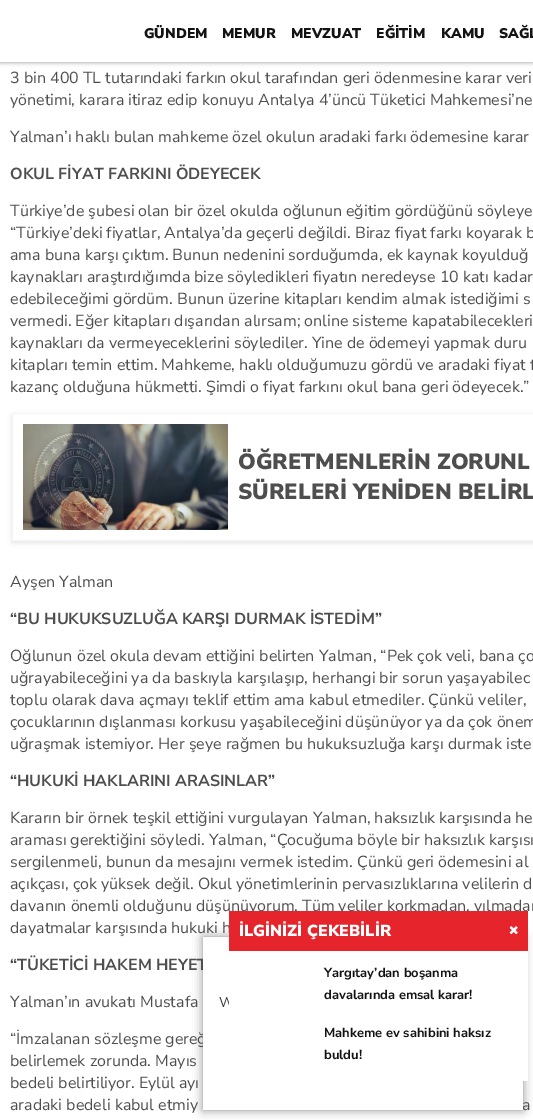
%!PS
<< /PageSize [533 1120] /PageUsesTransparency true >> setpagedevice
/mt/moveto load def
/li/lineto load def
/cp/closepath load def
/gs/gsave load def
/gr/grestore load def
/co { dup -16 bitshift 255 div exch dup -8 bitshift 255 and 255 div exch 255 and 255 div setrgbcolor } def
/fn { [ exch dup neg 0 0 3 -1 roll 0 0 ] selectfont } def
/tx { co fn moveto show } def
/bx { co rectfill } def
/al { dup .setfillconstantalpha .setstrokeconstantalpha } def
/rr { 5 dict begin { /r /h /w /y /x } { exch def } forall
  x r add y moveto x w add y 2 copy h add r arct x w add y h add x 1 index r arct
  x y h add x y r arct x y 2 copy exch w add exch r arct closepath end } def
/sh { 12 dict begin { /a /b /q /h /w /y /x } { exch def } forall gsave /was 0 def
  9 -2 -9 { dup b mul 4 div /e exch def 1 sub .425 mul 2.718 exch exp 1 add a .99 .min exch div /now exch def
    1 1 now sub 1 was sub div sub al /was now def
    w h .min e 2 mul add 0 gt { x e sub y e sub w e 2 mul add h e 2 mul add
      q e add b .6 mul add w h .min 2 div e add .min 0 .max rr fill } if } for grestore end } def
/im { 5 dict begin { /h /w /y /x /name } { exch def } forall
  gsave x y translate w h scale
  w h 8 [w 0 0 h 0 0] name (r) file false 3 colorimage grestore end } def
0 .pushpdf14devicefilter
0 1120 translate 1 -1 scale
4 setmiterlimit
0 0 533 1120 16#FFFFFF bx
16#000000 co
0 1 533 62 0 2 .3 sh
0 0 533 62 16#FFFFFF bx
gs
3 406 mt 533 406 li 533 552 li 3 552 li cp 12 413 mt 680 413 li 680 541 li 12 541 li cp eoclip newpath
16#000000 co
12 415 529 128 0 2.5 .1 sh
gr
16#F5F5F5 co
12.5 413.5 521 127 rectstroke
(media/1.raw) 23 424 205 106 im
16#888888 co
203 937 320 173 0 5 1 sh
(GÜNDEM) 144 38 /NunitoSans-Black 14 16#131313 tx
(MEMUR) 222 38 /NunitoSans-Black 14 16#131313 tx
gs
291 5 70 52 rectclip
(MEVZUAT) 291 38 /NunitoSans-Black 14 16#131313 tx
gr
(EĞİTİM) 376 38 /NunitoSans-Black 14 16#131313 tx
(KAMU) 441 38 /NunitoSans-Black 14 16#131313 tx
(SAĞL) 499 38 /NunitoSans-Black 14 16#131313 tx
(3 bin 400 TL tutarındaki farkın okul tarafından geri ödenmesine karar veri) 10 83 /NunitoSans-Regular 16 16#4E4E4E tx
(yönetimi, karara itiraz edip konuyu Antalya 4’üncü Tüketici Mahkemesi’ne) 10 105 /NunitoSans-Regular 16 16#4E4E4E tx
(Yalman’ı haklı bulan mahkeme özel okulun aradaki farkı ödemesine karar) 10 142 /NunitoSans-Regular 16 16#4E4E4E tx
(OKUL FİYAT FARKINI ÖDEYECEK) 10 179 /NunitoSans-Bold 16 16#4E4E4E tx
(Türkiye’de şubesi olan bir özel okulda oğlunun eğitim gördüğünü söyleye) 10 216 /NunitoSans-Regular 16 16#4E4E4E tx
(“Türkiye’deki fiyatlar, Antalya’da geçerli değildi. Biraz fiyat farkı koyarak b) 10 238 /NunitoSans-Regular 16 16#4E4E4E tx
(ama buna karşı çıktım. Bunun nedenini sorduğumda, ek kaynak koyulduğ) 10 260 /NunitoSans-Regular 16 16#4E4E4E tx
(kaynakları araştırdığımda bize söyledikleri fiyatın neredeyse 10 katı kadar) 10 282 /NunitoSans-Regular 16 16#4E4E4E tx
(edebileceğimi gördüm. Bunun üzerine kitapları kendim almak istediğimi s) 10 304 /NunitoSans-Regular 16 16#4E4E4E tx
(vermedi. Eğer kitapları dışarıdan alırsam; online sisteme kapatabilecekleri) 10 326 /NunitoSans-Regular 16 16#4E4E4E tx
(kaynakları da vermeyeceklerini söylediler. Yine de ödemeyi yapmak duru) 10 348 /NunitoSans-Regular 16 16#4E4E4E tx
(kitapları temin ettim. Mahkeme, haklı olduğumuzu gördü ve aradaki fiyat f) 10 370 /NunitoSans-Regular 16 16#4E4E4E tx
(kazanç olduğuna hükmetti. Şimdi o fiyat farkını okul bana geri ödeyecek.”) 10 392 /NunitoSans-Regular 16 16#4E4E4E tx
(ÖĞRETMENLERİN ZORUNL) 238 469 /NunitoSans-Black 22 16#4E4E4E tx
(SÜRELERİ YENİDEN BELİRL) 238 499 /NunitoSans-Black 22 16#4E4E4E tx
(Ayşen Yalman) 10 587 /NunitoSans-Regular 16 16#4E4E4E tx
(“BU HUKUKSUZLUĞA KARŞI DURMAK İSTEDİM”) 10 624 /NunitoSans-Bold 16 16#4E4E4E tx
(Oğlunun özel okula devam ettiğini belirten Yalman, “Pek çok veli, bana ço) 10 661 /NunitoSans-Regular 16 16#4E4E4E tx
(uğrayabileceğini ya da baskıyla karşılaşıp, herhangi bir sorun yaşayabilec) 10 683 /NunitoSans-Regular 16 16#4E4E4E tx
(toplu olarak dava açmayı teklif ettim ama kabul etmediler. Çünkü veliler,) 10 705 /NunitoSans-Regular 16 16#4E4E4E tx
(çocuklarının dışlanması korkusu yaşabileceğini düşünüyor ya da çok önem) 10 727 /NunitoSans-Regular 16 16#4E4E4E tx
(uğraşmak istemiyor. Her şeye rağmen bu hukuksuzluğa karşı durmak iste) 10 749 /NunitoSans-Regular 16 16#4E4E4E tx
(“HUKUKİ HAKLARINI ARASINLAR”) 10 786 /NunitoSans-Bold 16 16#4E4E4E tx
(Kararın bir örnek teşkil ettiğini vurgulayan Yalman, haksızlık karşısında he) 10 823 /NunitoSans-Regular 16 16#4E4E4E tx
(araması gerektiğini söyledi. Yalman, “Çocuğuma böyle bir haksızlık karşısı) 10 845 /NunitoSans-Regular 16 16#4E4E4E tx
(sergilenmeli, bunun da mesajını vermek istedim. Çünkü geri ödemesini al) 10 867 /NunitoSans-Regular 16 16#4E4E4E tx
(açıkçası, çok yüksek değil. Okul yönetimlerinin pervasızlıklarına velilerin d) 10 889 /NunitoSans-Regular 16 16#4E4E4E tx
(davanın önemli olduğunu düşünüyorum. Tüm veliler korkmadan, yılmadan) 10 911 /NunitoSans-Regular 16 16#4E4E4E tx
(dayatmalar karşısında hukuki h) 10 933 /NunitoSans-Regular 16 16#4E4E4E tx
(“TÜKETİCİ HAKEM HEYET) 10 970 /NunitoSans-Bold 16 16#4E4E4E tx
(Yalman’ın avukatı Mustafa) 10 1007 /NunitoSans-Regular 16 16#4E4E4E tx
(“İmzalanan sözleşme gereğ) 10 1044 /NunitoSans-Regular 16 16#4E4E4E tx
(belirlemek zorunda. Mayıs) 10 1066 /NunitoSans-Regular 16 16#4E4E4E tx
(bedeli belirtiliyor. Eylül ayı) 10 1088 /NunitoSans-Regular 16 16#4E4E4E tx
(aradaki bedeli kabul etmiy) 10 1110 /NunitoSans-Regular 16 16#4E4E4E tx
(a) 522 1110 /NunitoSans-Regular 16 16#4E4E4E tx
203 937 320 173 16#FFFFFF bx
(W) 219 1007 /NunitoSans-Regular 14 16#404040 tx
229 951 299 130 16#FFFFFF bx
229 911 299 40 16#E6242B bx
(İLGİNİZİ ÇEKEBİLİR) 239 936 /NunitoSans-Black 16 16#FFFFFF tx
(media/2.raw) 509 926 9 9 im
(Yargıtay’dan boşanma) 324 977 /NunitoSans-Bold 13 16#131313 tx
(davalarında emsal karar!) 324 999 /NunitoSans-Bold 13 16#131313 tx
(Mahkeme ev sahibini haksız) 324 1037 /NunitoSans-Bold 13 16#131313 tx
(buldu!) 324 1059 /NunitoSans-Bold 13 16#131313 tx
.poppdf14devicefilter showpage
